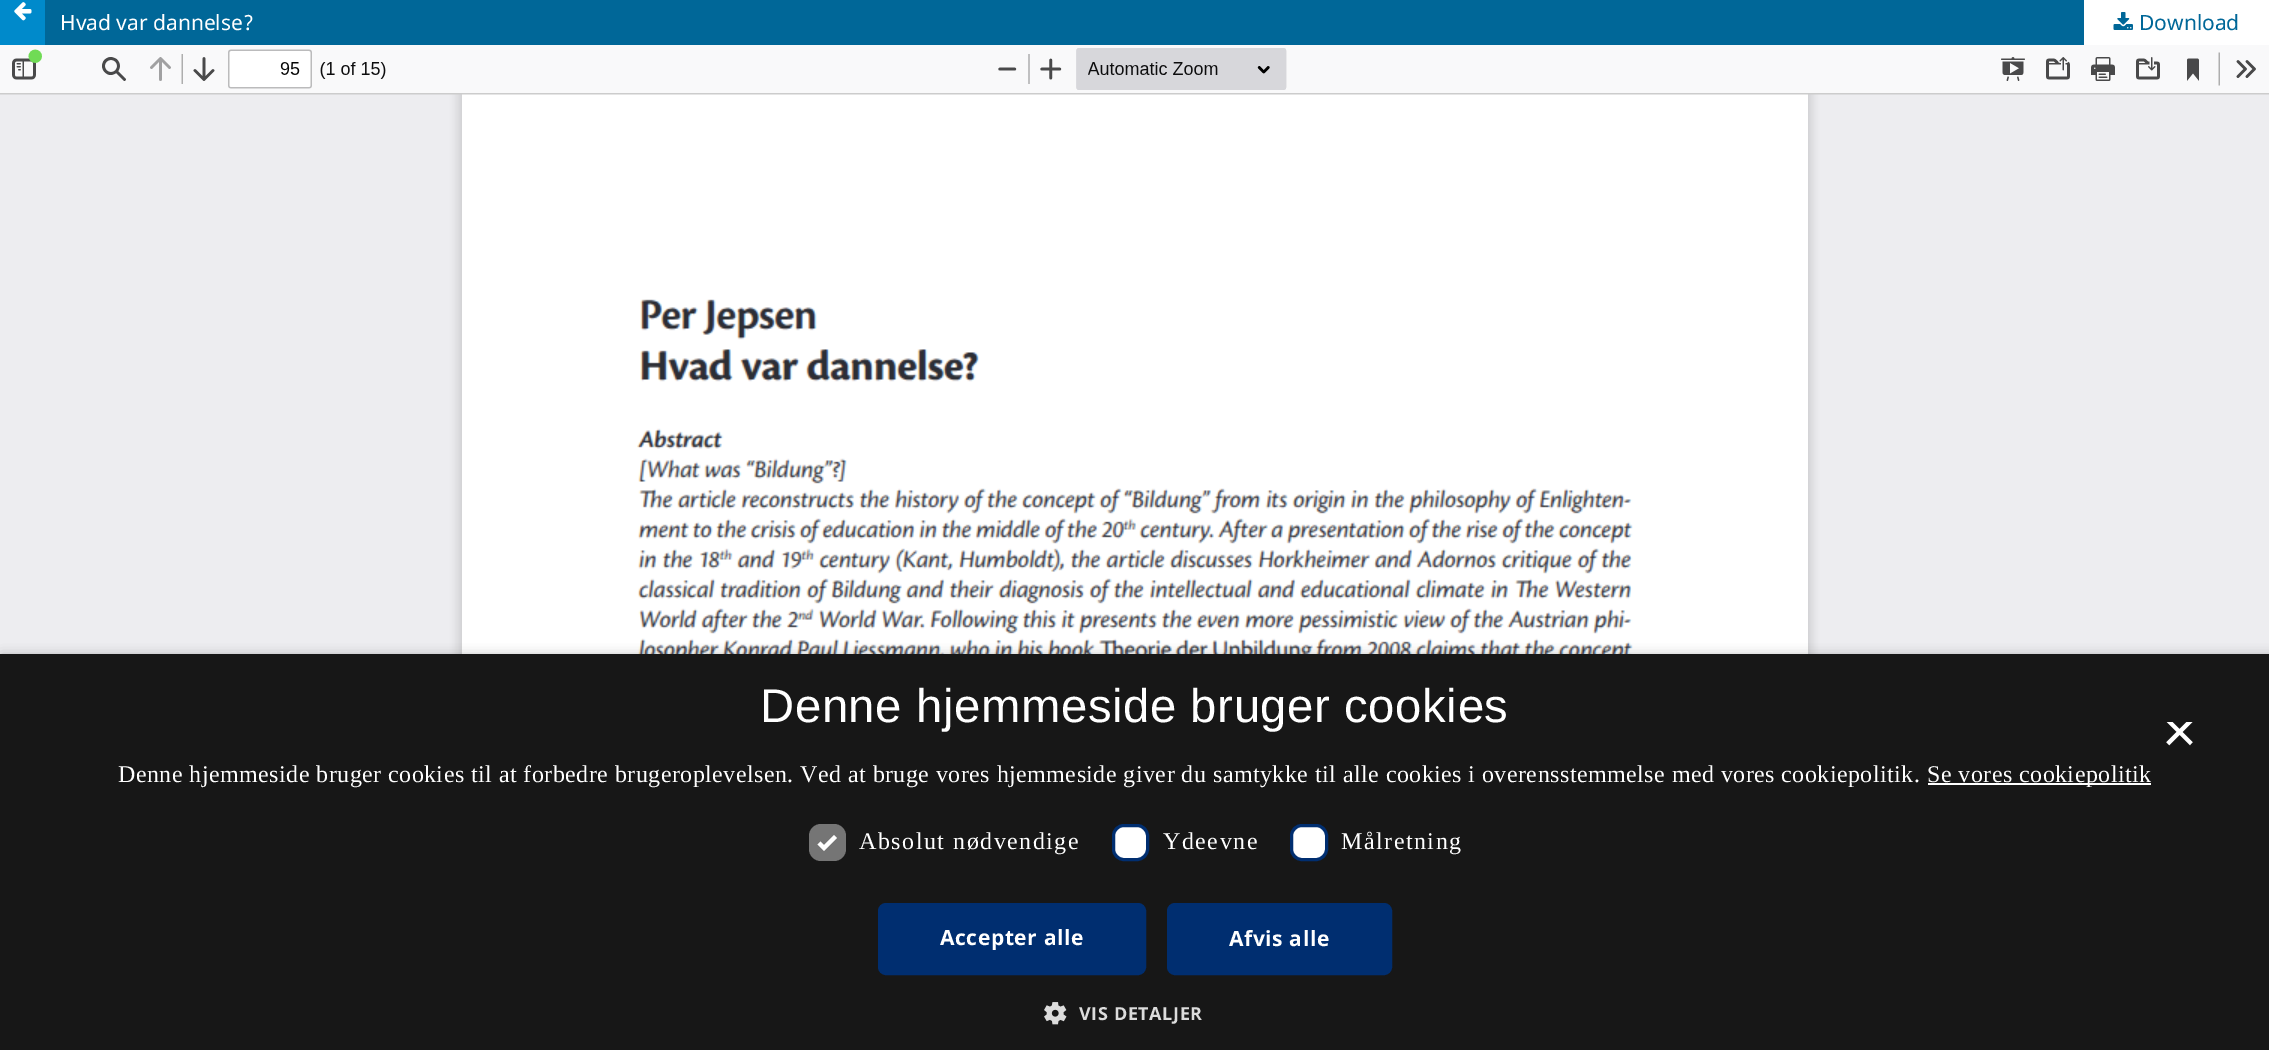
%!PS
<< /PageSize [2269 1050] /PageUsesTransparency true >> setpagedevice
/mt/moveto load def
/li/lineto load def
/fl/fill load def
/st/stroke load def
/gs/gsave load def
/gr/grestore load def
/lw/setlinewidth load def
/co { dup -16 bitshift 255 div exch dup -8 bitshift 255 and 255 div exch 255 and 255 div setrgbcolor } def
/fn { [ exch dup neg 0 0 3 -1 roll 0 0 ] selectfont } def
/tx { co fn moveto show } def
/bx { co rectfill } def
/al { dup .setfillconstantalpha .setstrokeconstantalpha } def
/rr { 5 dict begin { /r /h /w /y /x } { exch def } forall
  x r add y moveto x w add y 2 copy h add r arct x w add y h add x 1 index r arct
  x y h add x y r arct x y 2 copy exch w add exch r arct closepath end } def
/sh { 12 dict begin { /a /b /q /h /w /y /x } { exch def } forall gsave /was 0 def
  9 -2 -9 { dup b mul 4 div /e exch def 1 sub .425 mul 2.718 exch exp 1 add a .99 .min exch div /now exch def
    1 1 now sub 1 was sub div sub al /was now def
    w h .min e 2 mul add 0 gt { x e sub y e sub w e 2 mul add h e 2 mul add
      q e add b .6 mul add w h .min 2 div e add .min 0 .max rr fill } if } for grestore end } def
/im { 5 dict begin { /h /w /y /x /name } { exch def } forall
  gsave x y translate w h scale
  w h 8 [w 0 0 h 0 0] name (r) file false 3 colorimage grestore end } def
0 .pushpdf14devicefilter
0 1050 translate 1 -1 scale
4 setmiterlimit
0 0 2269 1050 16#FFFFFF bx
45 0 2039 45 16#006798 bx
0 0 45 45 16#008ACB bx
(media/1.raw) 14 2 18 19 im
(media/2.raw) 2113 12 20 18 im
(media/3.raw) 0 45 2269 609 im
16#000000 co
2 657 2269 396 0 6 .35 sh
0 654 2269 396 16#171717 bx
1928 783 223 2 16#FFFFFF bx
16#757575 co
809 824 37 37 12 rr fl
16#FFFFFF co
3.9 lw
819 843 mt 824 848 li 835.5 836.5 li st
1113.5 825.5 34 34 10.5 rr gs fl gr
16#002E70 co
3 lw
st
16#FFFFFF co
1291.5 825.5 35 34 10.5 rr gs fl gr
16#002E70 co
st
879 904 266 70 7 rr gs fl gr
2 lw
st
1168 904 223 70 7 rr gs fl gr
st
(media/4.raw) 1044 1002 23 23 im
(Hvad var dannelse?) 60 30 /NotoSans-Regular 21 16#FFFFFF tx
(Download) 2139 30 /NotoSans-Regular 21 16#006798 tx
/LiberationSans-Regular 47.25 fn
16#FFFFFF co
760 722 mt .6 0 (Denne hjemmeside bruger cookies) ashow
gs
2157 722 45 45 rectclip
(×) 2162 752 /LiberationSans-Regular 60 16#FFFFFF tx
gr
/LiberationSerif-Regular 24 fn
118 782 mt .45 0 (Denne hjemmeside bruger cookies til at forbedre brugeroplevelsen. Ved at bruge vores hjemmeside giver du samtykke til alle cookies i overensstemmelse med vores cookiepolitik.) ashow
1927 782 mt .45 0 (Se vores cookiepolitik) ashow
859 849 mt 1.5 0 (Absolut nødvendige) ashow
1163 849 mt 1.5 0 (Ydeevne) ashow
1341 849 mt 1.5 0 (Målretning) ashow
/OpenSans-Bold 21 fn
940 945 mt .6 0 (Accepter alle) ashow
1229 946 mt .6 0 (Afvis alle) ashow
/OpenSans-Bold 18 fn
16#DCDCDC co
1079 1020 mt .6 0 (VIS DETALJER) ashow
.poppdf14devicefilter showpage
